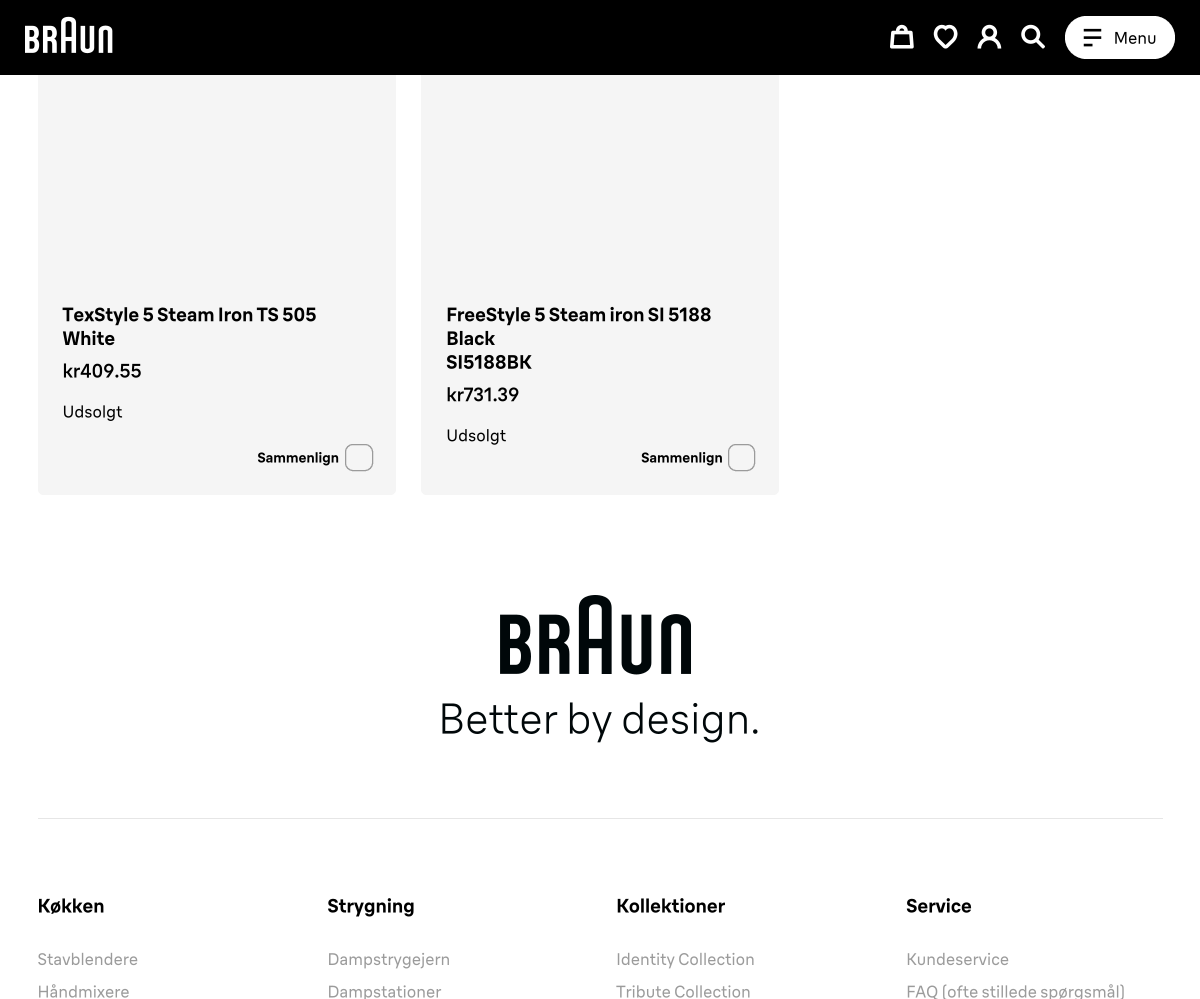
%!PS
<< /PageSize [1200 999] >> setpagedevice
/fl/fill load def
/st/stroke load def
/co { dup -16 bitshift 255 div exch dup -8 bitshift 255 and 255 div exch 255 and 255 div setrgbcolor } def
/bx { co rectfill } def
/rr { 5 dict begin { /r /h /w /y /x } { exch def } forall
  x r add y moveto x w add y 2 copy h add r arct x w add y h add x 1 index r arct
  x y h add x y r arct x y 2 copy exch w add exch r arct closepath end } def
/im { 5 dict begin { /h /w /y /x /name } { exch def } forall
  gsave x y translate w h scale
  w h 8 [w 0 0 h 0 0] name (r) file false 3 colorimage grestore end } def
0 999 translate 1 -1 scale
4 setmiterlimit
0 0 1200 999 16#FFFFFF bx
16#F5F5F5 co
38 -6 358 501 6 rr fl
(media/1.raw) 62 307 254 19 im
(media/2.raw) 62 330 53 16 im
(media/3.raw) 63 363 78 15 im
(media/4.raw) 63 405 60 16 im
(media/5.raw) 257 452 82 14 im
16#9B9B9B co
345.5 444.5 27 26 7.5 rr st
16#F5F5F5 co
421 -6 358 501 6 rr fl
(media/6.raw) 447 306 264 20 im
(media/7.raw) 447 330 48 16 im
(media/8.raw) 446 354 86 15 im
(media/9.raw) 447 387 72 15 im
(media/10.raw) 447 429 59 16 im
(media/11.raw) 641 452 81 14 im
16#9B9B9B co
728.5 444.5 26 26 7.5 rr st
0 0 1200 75 16#000000 bx
(media/12.raw) 25 16 88 38 im
(media/13.raw) 890 24 24 25 im
(media/14.raw) 933 24 25 25 im
(media/15.raw) 977 24 25 25 im
(media/16.raw) 1021 24 24 25 im
16#FFFFFF co
1065 16 110 43 21.5 rr fl
(media/17.raw) 1083 28 19 19 im
(media/18.raw) 1115 31 41 13 im
(media/19.raw) 442 595 316 148 im
38 818 1125 1 16#E6E6E6 bx
(media/20.raw) 39 898 65 16 im
(media/21.raw) 38 952 100 14 im
(media/22.raw) 39 984 90 14 im
(media/23.raw) 328 898 86 19 im
(media/24.raw) 329 952 120 17 im
(media/25.raw) 329 985 113 14 im
(media/26.raw) 617 898 108 15 im
(media/27.raw) 617 952 137 17 im
(media/28.raw) 616 985 134 13 im
(media/29.raw) 906 898 66 15 im
(media/30.raw) 907 952 102 14 im
(media/31.raw) 907 984 217 15 im
showpage
